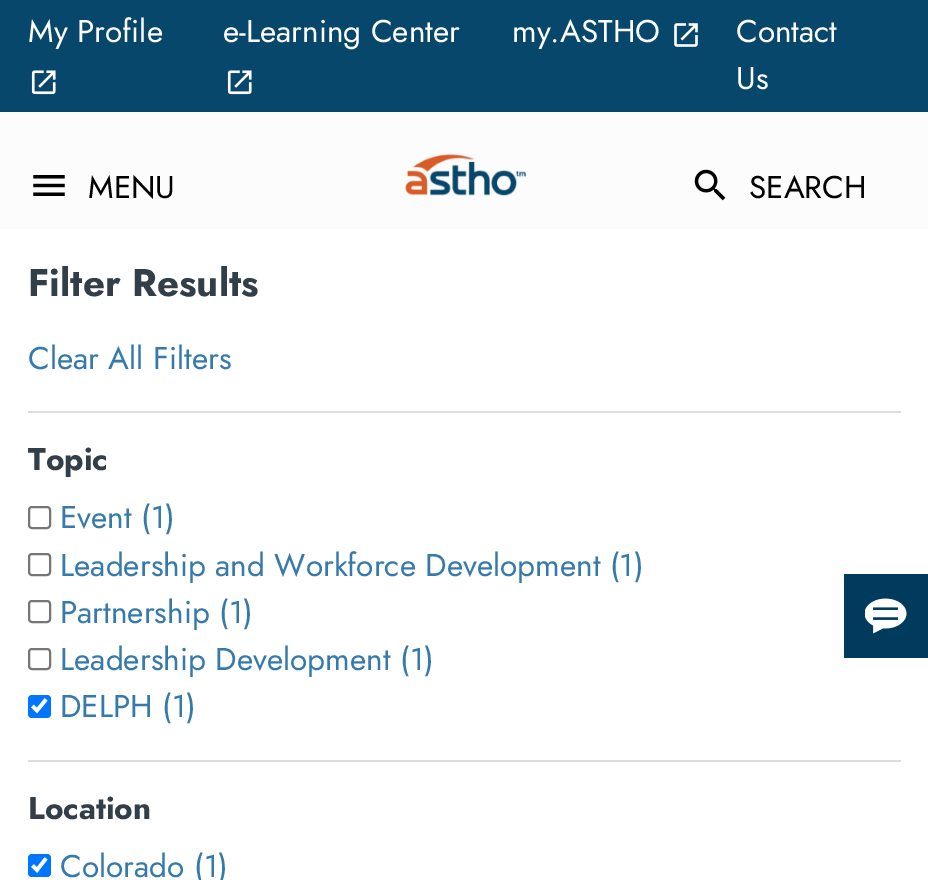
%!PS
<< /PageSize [928 880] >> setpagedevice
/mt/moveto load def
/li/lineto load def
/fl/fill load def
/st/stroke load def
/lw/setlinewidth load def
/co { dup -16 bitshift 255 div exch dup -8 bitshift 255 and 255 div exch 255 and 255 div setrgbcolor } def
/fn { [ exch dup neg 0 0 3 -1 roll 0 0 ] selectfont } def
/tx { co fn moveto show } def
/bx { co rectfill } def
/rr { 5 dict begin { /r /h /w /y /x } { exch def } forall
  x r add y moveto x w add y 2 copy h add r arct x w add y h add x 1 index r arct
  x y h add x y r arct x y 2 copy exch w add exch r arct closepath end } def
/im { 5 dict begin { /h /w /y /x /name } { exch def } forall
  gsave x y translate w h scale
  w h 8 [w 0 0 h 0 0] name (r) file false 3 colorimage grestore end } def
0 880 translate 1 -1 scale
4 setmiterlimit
0 0 928 880 16#FFFFFF bx
0 0 928 112 16#06476B bx
(media/1.raw) 31 70 25 25 im
(media/1.raw) 227 70 25 25 im
(media/2.raw) 674 23 24 24 im
0 112 928 117 16#FCFCFC bx
(media/3.raw) 33 175 32 21 im
(media/4.raw) 405 154 121 42 im
(media/5.raw) 694 169 32 32 im
28 411 873 2 16#DDDDDD bx
16#767676 co
2 lw
29 507 21 21 3 rr st
29 554 21 21 3 rr st
29 601 21 21 3 rr st
29 649 21 20 3 rr st
16#0075FF co
28 695 23 23 4 rr fl
16#FFFFFF co
3.6 lw
32.5 706 mt 37 710.5 li 46 699.5 li st
28 760 873 2 16#DDDDDD bx
16#0075FF co
28 854 23 23 4 rr fl
16#FFFFFF co
32.5 865.5 mt 37 870 li 46 858.5 li st
844 574 84 84 16#003A5D bx
(media/6.raw) 865 598 42 36 im
(My Profile) 28 42 /Jost-Regular 31.5 16#FFFFFF tx
(e-Learning Center) 223 42 /Jost-Regular 31.5 16#FFFFFF tx
(my.ASTHO) 512 42 /Jost-Regular 31.5 16#FFFFFF tx
(Contact) 736 42 /Jost-Regular 31.5 16#FFFFFF tx
(Us) 736 89 /Jost-Regular 31.5 16#FFFFFF tx
(MENU) 88 198 /Jost-Regular 31.5 16#000000 tx
(SEARCH) 749 198 /Jost-Regular 31.5 16#000000 tx
(Filter Results) 28 296 /Jost-Bold 38.5 16#323E48 tx
(Clear All Filters) 28 369 /Jost-Regular 31.5 16#367AAB tx
(Topic) 28 470 /Jost-Bold 31.5 16#323E48 tx
(Event \(1\)) 60 528 /Jost-Regular 31.5 16#367AAB tx
(Leadership and Workforce Development \(1\)) 60 576 /Jost-Regular 31.5 16#367AAB tx
(Partnership \(1\)) 60 623 /Jost-Regular 31.5 16#367AAB tx
(Leadership Development \(1\)) 60 670 /Jost-Regular 31.5 16#367AAB tx
(DELPH \(1\)) 60 717 /Jost-Regular 31.5 16#367AAB tx
(Location) 28 819 /Jost-Bold 31.5 16#323E48 tx
(Colorado \(1\)) 60 877 /Jost-Regular 31.5 16#367AAB tx
showpage
